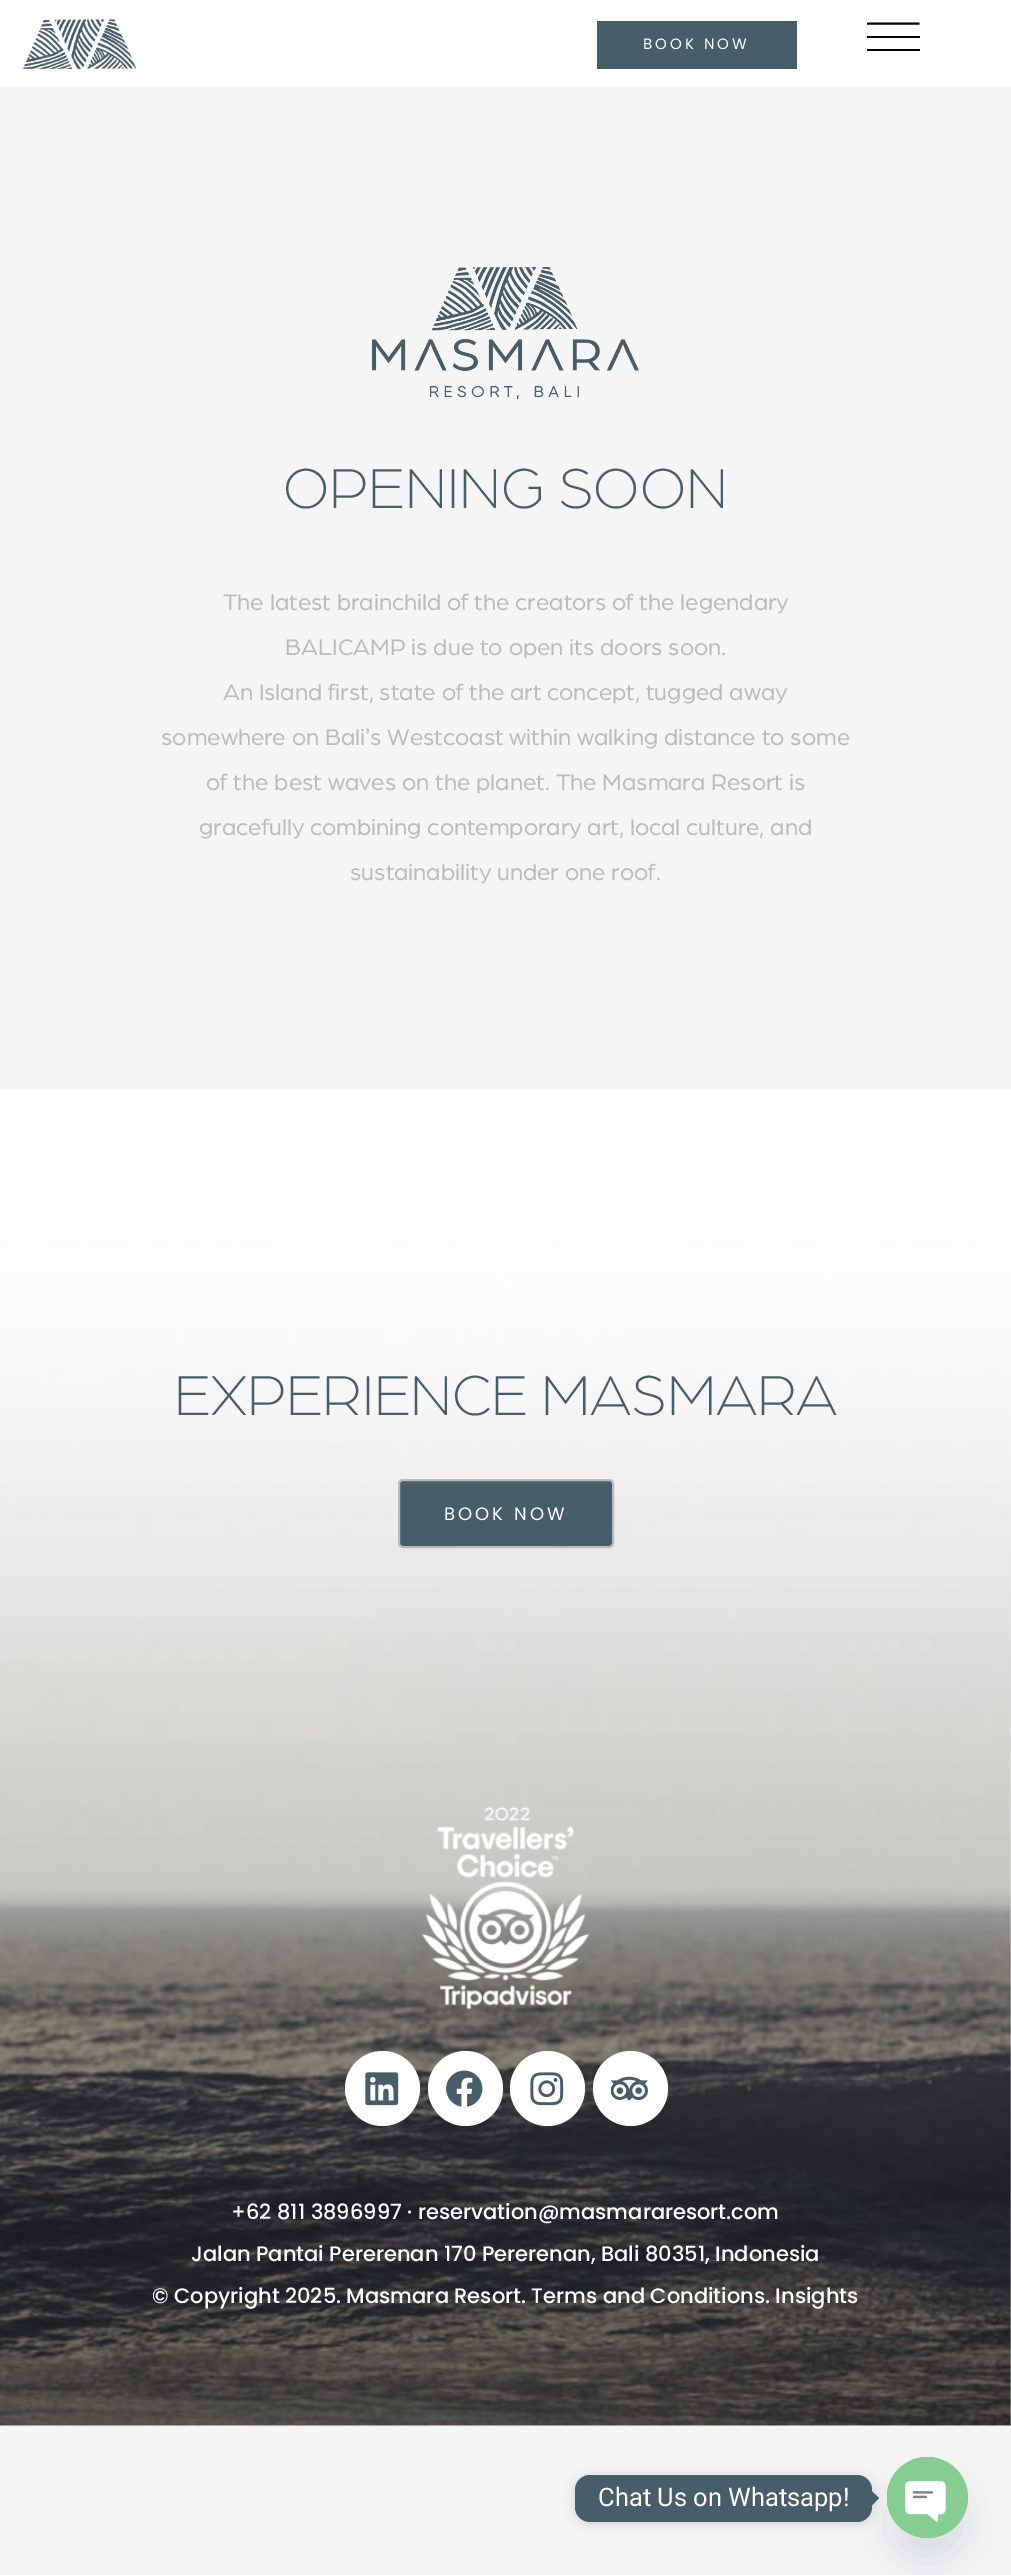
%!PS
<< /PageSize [1011 2575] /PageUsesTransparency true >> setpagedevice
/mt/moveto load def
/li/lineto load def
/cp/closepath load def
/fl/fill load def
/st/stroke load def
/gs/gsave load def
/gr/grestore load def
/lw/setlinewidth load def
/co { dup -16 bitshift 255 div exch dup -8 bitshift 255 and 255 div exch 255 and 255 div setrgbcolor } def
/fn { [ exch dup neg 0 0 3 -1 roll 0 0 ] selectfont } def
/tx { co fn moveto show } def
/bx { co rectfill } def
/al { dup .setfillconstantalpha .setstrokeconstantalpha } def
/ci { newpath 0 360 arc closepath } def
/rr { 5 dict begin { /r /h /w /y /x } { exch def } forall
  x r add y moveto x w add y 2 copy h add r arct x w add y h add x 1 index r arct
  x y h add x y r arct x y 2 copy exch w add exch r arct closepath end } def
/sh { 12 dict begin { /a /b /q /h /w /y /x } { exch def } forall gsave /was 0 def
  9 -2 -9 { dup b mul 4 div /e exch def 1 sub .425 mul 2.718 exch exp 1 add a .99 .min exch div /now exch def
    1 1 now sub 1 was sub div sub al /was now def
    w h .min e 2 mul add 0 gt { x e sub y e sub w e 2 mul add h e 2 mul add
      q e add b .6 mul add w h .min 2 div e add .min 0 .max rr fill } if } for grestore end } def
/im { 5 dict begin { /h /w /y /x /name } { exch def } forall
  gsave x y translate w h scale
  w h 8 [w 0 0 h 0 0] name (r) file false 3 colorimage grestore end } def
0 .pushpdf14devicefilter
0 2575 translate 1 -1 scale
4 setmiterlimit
0 0 1011 2575 16#F5F5F5 bx
0 0 1011 87 16#FFFFFF bx
(media/1.raw) 23 19 113 50 im
597 21 200 48 16#475D6A bx
16#000000 co
2 lw
867 23.5 mt 919.5 23.5 li st
867 36 53 2 16#000000 bx
867 49 53 2 16#000000 bx
(media/2.raw) 372 267 267 132 im
(media/3.raw) 0 1089 1011 1337 im
16#475D6A co
399 1480 214 67 4 rr gs fl gr
16#BBBBBB co
st
(media/4.raw) 422 1806 167 204 im
16#FFFFFF co
382.5 2088.5 37.5 ci fl
(media/5.raw) 365 2072 34 34 im
465.5 2088.5 37.5 ci fl
(media/6.raw) 446 2070 37 37 im
547.5 2088.5 37.5 ci fl
(media/7.raw) 530 2072 34 34 im
630.5 2088.5 37.5 ci fl
(media/8.raw) 611 2076 37 25 im
16#000000 co
575 2477 297 46 15 6 .15 sh
16#475D6A co
575 2475 297 47 15 rr fl
871.5 2506 mt 871.5 2491 li 879 2498 li cp fl
16#49687E co
887 2481 81 81 40.5 18 .16 sh
16#86CD91 co
927.5 2497.5 40.5 ci fl
(media/9.raw) 887 2457 63 81 im
/Poppins-Regular 15 fn
16#FFFFFF co
643 49 mt 3 0 (BOOK NOW) ashow
(OPENING SOON) 283 508 /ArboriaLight-Light 60 16#475D6A tx
(The latest brainchild of the creators of the legendary) 223 610 /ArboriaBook-Regular 24 16#BBBBBB tx
(BALICAMP is due to open its doors soon.) 285 655 /ArboriaBook-Regular 24 16#BBBBBB tx
(An Island first, state of the art concept, tugged away) 223 700 /ArboriaBook-Regular 24 16#BBBBBB tx
(somewhere on Bali) 161 745 /ArboriaBook-Regular 24 16#BBBBBB tx
(’) 365 745 /LiberationSans-Regular 24 16#BBBBBB tx
(s Westcoast within walking distance to some) 370 745 /ArboriaBook-Regular 24 16#BBBBBB tx
(of the best waves on the planet. The Masmara Resort is) 206 790 /ArboriaBook-Regular 24 16#BBBBBB tx
(gracefully combining contemporary art, local culture, and) 199 835 /ArboriaBook-Regular 24 16#BBBBBB tx
(sustainability under one roof.) 350 880 /ArboriaBook-Regular 24 16#BBBBBB tx
(EXPERIENCE MASMARA) 174 1415 /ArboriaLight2-Light 60 16#475D6A tx
/Poppins-Regular 18 fn
16#FFFFFF co
444 1520 mt 3 0 (BOOK NOW) ashow
(+62 811 3896997 · reservation@masmararesort.com) 231 2219 /Poppins-Medium 21 16#FFFFFF tx
(Jalan Pantai Pererenan 170 Pererenan, Bali 80351, Indonesia) 191 2261 /Poppins-Medium 21 16#FFFFFF tx
(© Copyright 2025. Masmara Resort. Terms and Conditions. Insights) 152 2303 /Poppins-Medium 21 16#FFFFFF tx
(Chat Us on Whatsapp!) 598 2506 /Roboto-Regular 25.5 16#FFFFFF tx
.poppdf14devicefilter showpage
